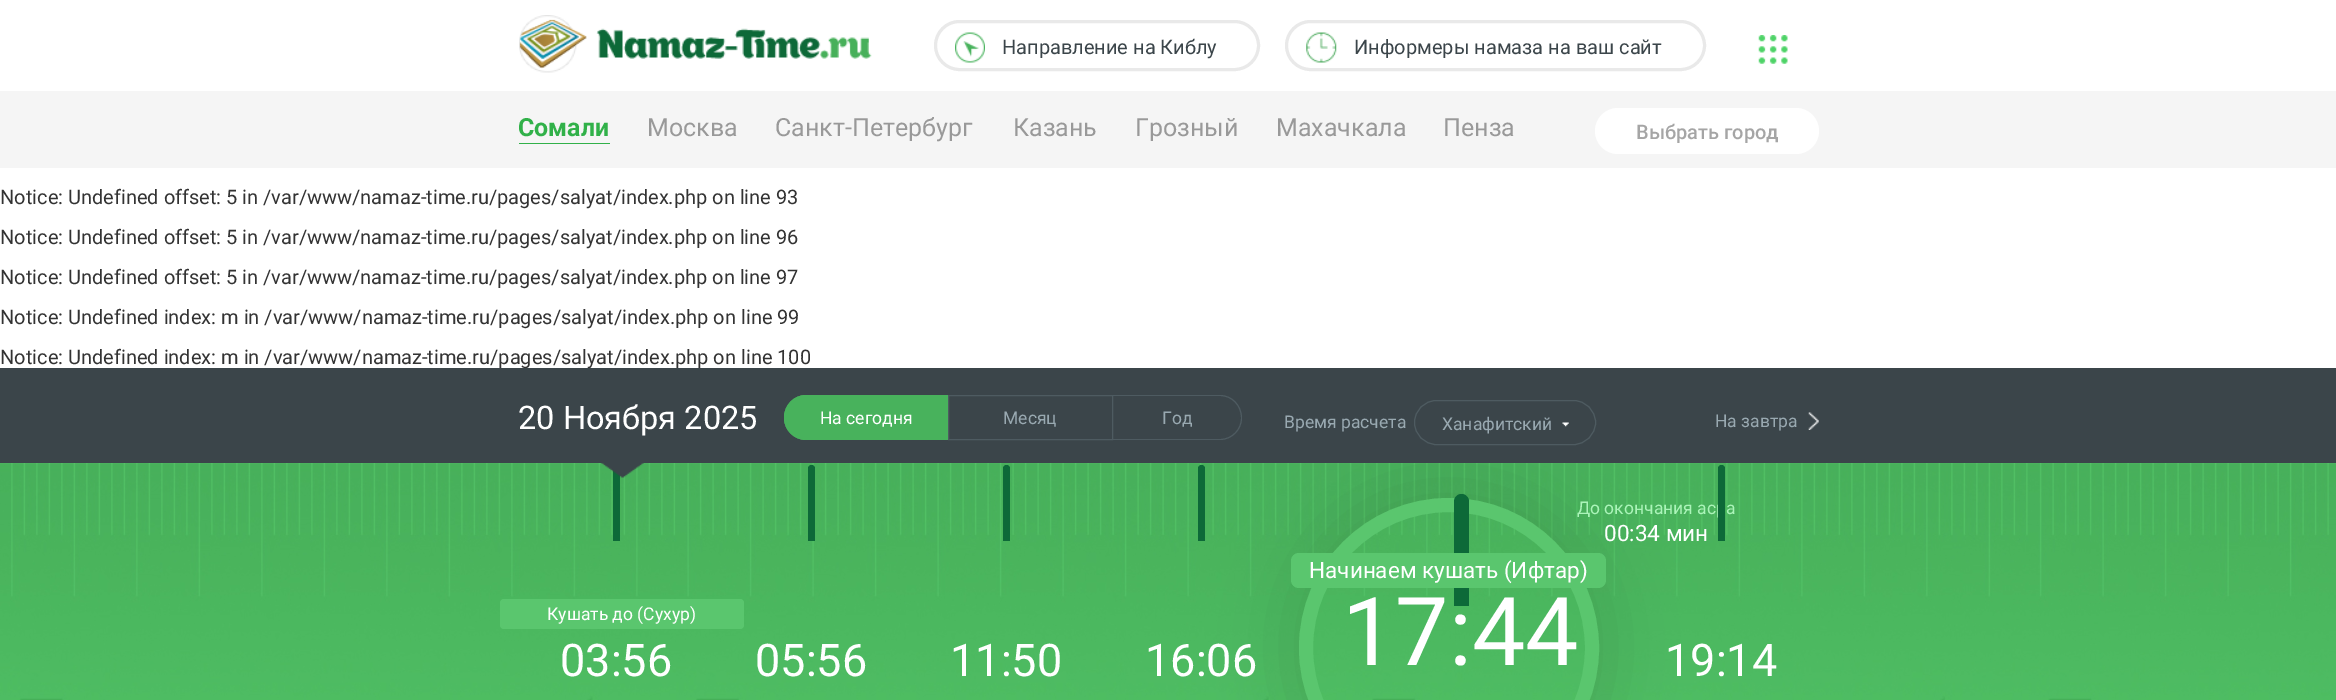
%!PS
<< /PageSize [2336 700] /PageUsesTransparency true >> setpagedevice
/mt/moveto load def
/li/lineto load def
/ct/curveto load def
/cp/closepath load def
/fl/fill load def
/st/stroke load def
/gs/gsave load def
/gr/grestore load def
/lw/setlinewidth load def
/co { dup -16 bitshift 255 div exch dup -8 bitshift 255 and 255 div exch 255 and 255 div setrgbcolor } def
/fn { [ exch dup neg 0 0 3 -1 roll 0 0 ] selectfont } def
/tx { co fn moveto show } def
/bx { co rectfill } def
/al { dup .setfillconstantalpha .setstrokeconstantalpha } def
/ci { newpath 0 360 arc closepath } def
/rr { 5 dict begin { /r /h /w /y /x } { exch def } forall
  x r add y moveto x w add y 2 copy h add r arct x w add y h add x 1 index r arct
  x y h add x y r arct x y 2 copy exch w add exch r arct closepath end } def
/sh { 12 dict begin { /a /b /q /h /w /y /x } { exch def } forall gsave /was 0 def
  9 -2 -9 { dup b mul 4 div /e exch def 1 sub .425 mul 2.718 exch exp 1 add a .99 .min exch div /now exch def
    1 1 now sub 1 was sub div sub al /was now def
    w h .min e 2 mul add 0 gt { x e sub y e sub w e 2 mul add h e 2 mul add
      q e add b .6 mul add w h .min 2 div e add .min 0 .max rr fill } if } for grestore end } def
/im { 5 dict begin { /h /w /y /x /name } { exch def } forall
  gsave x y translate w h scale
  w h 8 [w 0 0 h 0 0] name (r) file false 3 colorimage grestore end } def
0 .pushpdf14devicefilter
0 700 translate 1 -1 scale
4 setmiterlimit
0 0 2336 700 16#FFFFFF bx
(media/1.raw) 519 15 353 58 im
16#E9E9E9 co
3 lw
935.5 21.5 323 48 24 rr st
(media/2.raw) 955 32 30 31 im
1286.5 21.5 418 48 24 rr st
(media/3.raw) 1306 32 31 31 im
(media/4.raw) 1758 35 30 29 im
0 91 2336 77 16#F5F5F5 bx
519 143 91 1 16#31B149 bx
16#FFFFFF co
1595 108 224 46 23 rr fl
(media/8.raw) 0 463 2336 237 im
613 465 7 76 16#0D6938 bx
(media/7.raw) 601 463 43 15 im
16#5AC66E co
500 599 244 30 4 rr fl
16#0D6938 co
811.5 465 mt 813.5 465 815 466.5 815 468.5 ct 815 541 li 808 541 li 808 468.5 li 808 466.5 809.5 465 811.5 465 ct cp fl
1006.5 465 mt 1008.5 465 1010 466.5 1010 468.5 ct 1010 541 li 1003 541 li 1003 468.5 li 1003 466.5 1004.5 465 1006.5 465 ct cp fl
1201.5 465 mt 1203.5 465 1205 466.5 1205 468.5 ct 1205 541 li 1198 541 li 1198 468.5 li 1198 466.5 1199.5 465 1201.5 465 ct cp fl
gs
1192 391 mt 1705 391 li 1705 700 li 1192 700 li cp 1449 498 mt 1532 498 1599 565 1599 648 ct 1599 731 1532 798 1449 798 ct 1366 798 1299 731 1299 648 ct 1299 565 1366 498 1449 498 ct cp eoclip newpath
16#000000 co
1286 485 325 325 162.5 31 .1 sh
gr
(Направление на Киблу) 1002 54 /Roboto-Regular 20 16#3B454A tx
(Информеры намаза на ваш сайт) 1354 54 /Roboto-Regular 20 16#3B454A tx
(Сомали) 518 136 /Roboto-Bold 25 16#31B149 tx
(Москва) 647 136 /Roboto-Regular 25 16#999999 tx
(Санкт-Петербург) 775 136 /Roboto-Regular 25 16#999999 tx
(Казань) 1013 136 /Roboto-Regular 25 16#999999 tx
(Грозный) 1135 136 /Roboto-Regular 25 16#999999 tx
(Махачкала) 1276 136 /Roboto-Regular 25 16#999999 tx
(Пенза) 1443 136 /Roboto-Regular 25 16#999999 tx
(Выбрать город) 1636 139 /Roboto-Medium 20 16#A5A5A5 tx
(Notice: Undefined offset: 5 in /var/www/namaz-time.ru/pages/salyat/index.php on line 93) 0 204 /Roboto-Regular 20 16#333333 tx
(Notice: Undefined offset: 5 in /var/www/namaz-time.ru/pages/salyat/index.php on line 96) 0 244 /Roboto-Regular 20 16#333333 tx
(Notice: Undefined offset: 5 in /var/www/namaz-time.ru/pages/salyat/index.php on line 97) 0 284 /Roboto-Regular 20 16#333333 tx
(Notice: Undefined index: m in /var/www/namaz-time.ru/pages/salyat/index.php on line 99) 0 324 /Roboto-Regular 20 16#333333 tx
(Notice: Undefined index: m in /var/www/namaz-time.ru/pages/salyat/index.php on line 100) 0 364 /Roboto-Regular 20 16#333333 tx
0 368 2336 95 16#3B454A bx
(20 Ноября 2025) 518 429 /Roboto-Regular 32.5 16#FFFFFF tx
16#48B25C co
806.5 395 mt 948 395 li 948 440 li 806.5 440 li 794 440 784 430 784 417.5 ct 784 405 794 395 806.5 395 ct cp fl
806 395 mt 948 395 li 948 440 li 806 440 li 794 440 784 430 784 418 ct 784 405 794 395 806 395 ct cp 806 396 mt 948 396 li 948 439 li 806 439 li 795 439 785 429 785 418 ct 785 406 795 396 806 396 ct cp eofill
(На сегодня) 820 424 /Roboto-Regular 17.5 16#FFFFFF tx
16#4E5B61 co
1 lw
948.5 395.5 164 44 rectstroke
(Месяц) 1003 424 /Roboto-Regular 17.5 16#99A9B1 tx
16#4E5B61 co
1112 395 mt 1220 395 li 1232 395 1242 405 1242 418 ct 1242 430 1232 440 1220 440 ct 1112 440 li cp 1112 396 mt 1220 396 li 1232 396 1241 406 1241 418 ct 1241 429 1232 439 1220 439 ct 1112 439 li cp eofill
(Год) 1162 424 /Roboto-Regular 17.5 16#99A9B1 tx
(Время расчета) 1284 428 /Roboto-Regular 17.5 16#99A9B1 tx
16#4E5B61 co
1414.5 400.5 181 44 22 rr st
(Ханафитский) 1442 430 /Roboto-Regular 17.5 16#99A9B1 tx
(media/5.raw) 1562 422 7 5 im
(На завтра) 1715 427 /Roboto-Regular 17.5 16#99A9B1 tx
(media/6.raw) 1808 412 11 18 im
(Кушать до \(Сухур\)) 547 620 /Roboto-Regular 17.5 16#FFFFFF tx
(03:56) 560 676 /Roboto-Regular 45 16#FFFFFF tx
(05:56) 755 676 /Roboto-Regular 45 16#FFFFFF tx
(11:50) 950 676 /Roboto-Regular 45 16#FFFFFF tx
(16:06) 1145 676 /Roboto-Regular 45 16#FFFFFF tx
(До окончания асра) 1577 514 /Roboto-Regular 17.5 16#ABF4B9 tx
16#5AC66E co
14 lw
1449 648 143 ci st
(00:34 мин) 1604 541 /Roboto-Regular 22.5 16#FFFFFF tx
(17:44) 1342 665 /Roboto-Regular 95 16#FFFFFF tx
16#0D6938 co
1461.5 494 mt 1465.5 494 1469 497.5 1469 501.5 ct 1469 606 li 1454 606 li 1454 501.5 li 1454 497.5 1457.5 494 1461.5 494 ct cp fl
16#5AC66E co
1291 553 315 35 8 rr fl
(Начинаем кушать \(Ифтар\)) 1309 578 /Roboto-Regular 22.5 16#FFFFFF tx
16#0D6938 co
1721.5 465 mt 1723.5 465 1725 466.5 1725 468.5 ct 1725 541 li 1718 541 li 1718 468.5 li 1718 466.5 1719.5 465 1721.5 465 ct cp fl
(19:14) 1665 676 /Roboto-Regular 45 16#FFFFFF tx
.poppdf14devicefilter showpage
